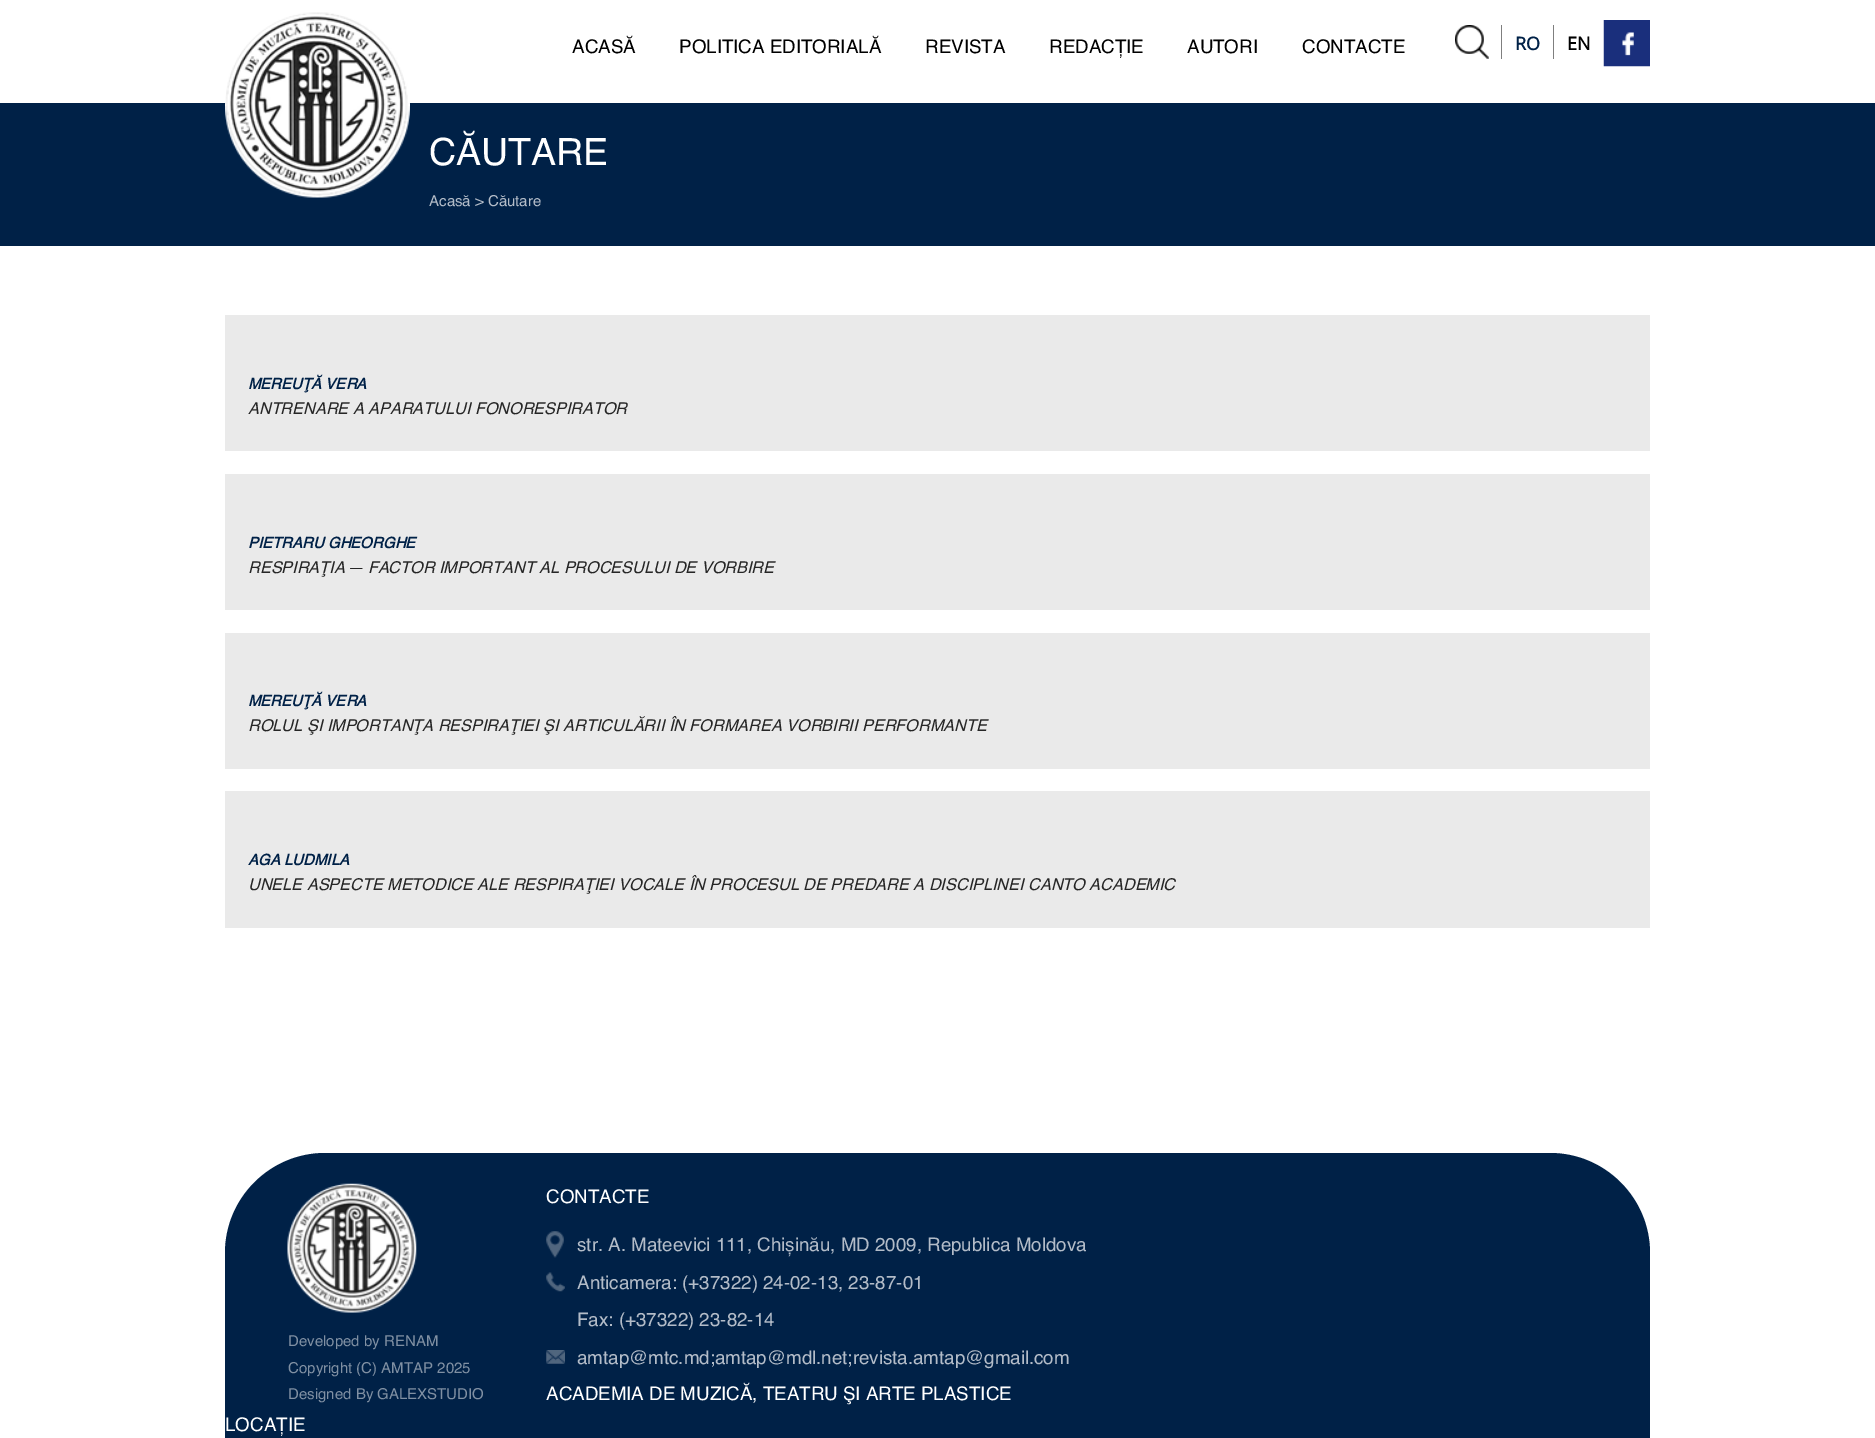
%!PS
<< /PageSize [1875 1438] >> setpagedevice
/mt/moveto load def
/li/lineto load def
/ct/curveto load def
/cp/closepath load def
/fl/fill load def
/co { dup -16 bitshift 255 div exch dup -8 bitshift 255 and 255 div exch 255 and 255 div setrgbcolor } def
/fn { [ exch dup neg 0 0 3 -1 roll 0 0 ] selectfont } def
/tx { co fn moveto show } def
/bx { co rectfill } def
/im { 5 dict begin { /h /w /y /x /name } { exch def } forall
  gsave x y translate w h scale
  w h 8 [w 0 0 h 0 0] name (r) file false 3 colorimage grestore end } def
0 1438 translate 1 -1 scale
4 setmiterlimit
0 0 1875 1438 16#FFFFFF bx
0 103 1875 143 16#002147 bx
(media/1.raw) 225 12 185 186 im
(media/2.raw) 1455 25 34 34 im
1501 25 1 34 16#7F7F7F bx
1553 25 1 34 16#7F7F7F bx
(media/3.raw) 1603 20 47 47 im
225 315 1425 136 16#EAEAEA bx
225 474 1425 136 16#EAEAEA bx
225 633 1425 136 16#EAEAEA bx
225 791 1425 137 16#EAEAEA bx
16#002147 co
325 1153 mt 1550 1153 li 1605 1153 1650 1198 1650 1253 ct 1650 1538 li 225 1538 li 225 1253 li 225 1198 270 1153 325 1153 ct cp fl
(media/4.raw) 287 1183 130 130 im
(media/5.raw) 546 1231 18 27 im
(media/6.raw) 546 1272 19 20 im
(media/7.raw) 546 1350 19 14 im
(ACASĂ) 572 53 /Helvetica-Regular 18.75 16#000000 tx
(POLITICA EDITORIALĂ) 679 53 /Helvetica-Regular 18.75 16#000000 tx
(REVISTA) 925 53 /Helvetica-Regular 18.75 16#000000 tx
(REDACȚIE) 1049 53 /Helvetica-Regular 18.75 16#000000 tx
(AUTORI) 1187 53 /Helvetica-Regular 18.75 16#000000 tx
(CONTACTE) 1302 53 /Helvetica-Regular 18.75 16#000000 tx
(RO) 1515 50 /OpenSans-Bold 18 16#002147 tx
(EN) 1567 50 /OpenSans-Bold 18 16#000000 tx
(CĂUTARE) 429 165 /Helvetica-Regular 37.5 16#FFFFFF tx
(Acasă > Căutare) 429 206 /Helvetica-Regular 15 16#B3BCC8 tx
(MEREUŢĂ VERA) 248 389 /Helvetica-BoldItalic 15 16#002147 tx
(ANTRENARE A APARATULUI FONORESPIRATOR) 248 414 /Helvetica-Italic 16.25 16#262626 tx
(PIETRARU GHEORGHE) 248 548 /Helvetica-BoldItalic 15 16#002147 tx
(RESPIRAŢIA — FACTOR IMPORTANT AL PROCESULUI DE VORBIRE) 248 573 /Helvetica-Italic 16.25 16#262626 tx
(MEREUŢĂ VERA) 248 706 /Helvetica-BoldItalic 15 16#002147 tx
(ROLUL ŞI IMPORTANŢA RESPIRAŢIEI ŞI ARTICULĂRII ÎN FORMAREA VORBIRII PERFORMANTE) 248 731 /Helvetica-Italic 16.25 16#262626 tx
(AGA LUDMILA) 248 865 /Helvetica-BoldItalic 15 16#002147 tx
(UNELE ASPECTE METODICE ALE RESPIRAŢIEI VOCALE ÎN PROCESUL DE PREDARE A DISCIPLINEI CANTO ACADEMIC) 248 890 /Helvetica-Italic 16.25 16#262626 tx
(Developed by RENAM) 288 1346 /Helvetica-Regular 15 16#8090A3 tx
(Copyright \(C\) AMTAP 2025) 288 1373 /Helvetica-Regular 15 16#8090A3 tx
(Designed By GALEXSTUDIO) 288 1399 /Helvetica-Regular 15 16#8090A3 tx
(CONTACTE) 546 1203 /Helvetica-Regular 18.75 16#FFFFFF tx
(str. A. Mateevici 111, Chișinău, MD 2009, Republica Moldova) 577 1251 /Helvetica-Regular 18.75 16#B3BCC8 tx
(Anticamera: \(+37322\) 24-02-13, 23-87-01) 577 1289 /Helvetica-Regular 18.75 16#B3BCC8 tx
(Fax: \(+37322\) 23-82-14) 577 1326 /Helvetica-Regular 18.75 16#B3BCC8 tx
(amtap@mtc.md;amtap@mdl.net;revista.amtap@gmail.com) 577 1364 /Helvetica-Regular 18.75 16#B3BCC8 tx
(ACADEMIA DE MUZICĂ, TEATRU ŞI ARTE PLASTICE) 546 1400 /Helvetica-Regular 18.75 16#FFFFFF tx
(LOCAȚIE) 225 1431 /Helvetica-Regular 18.75 16#FFFFFF tx
showpage
